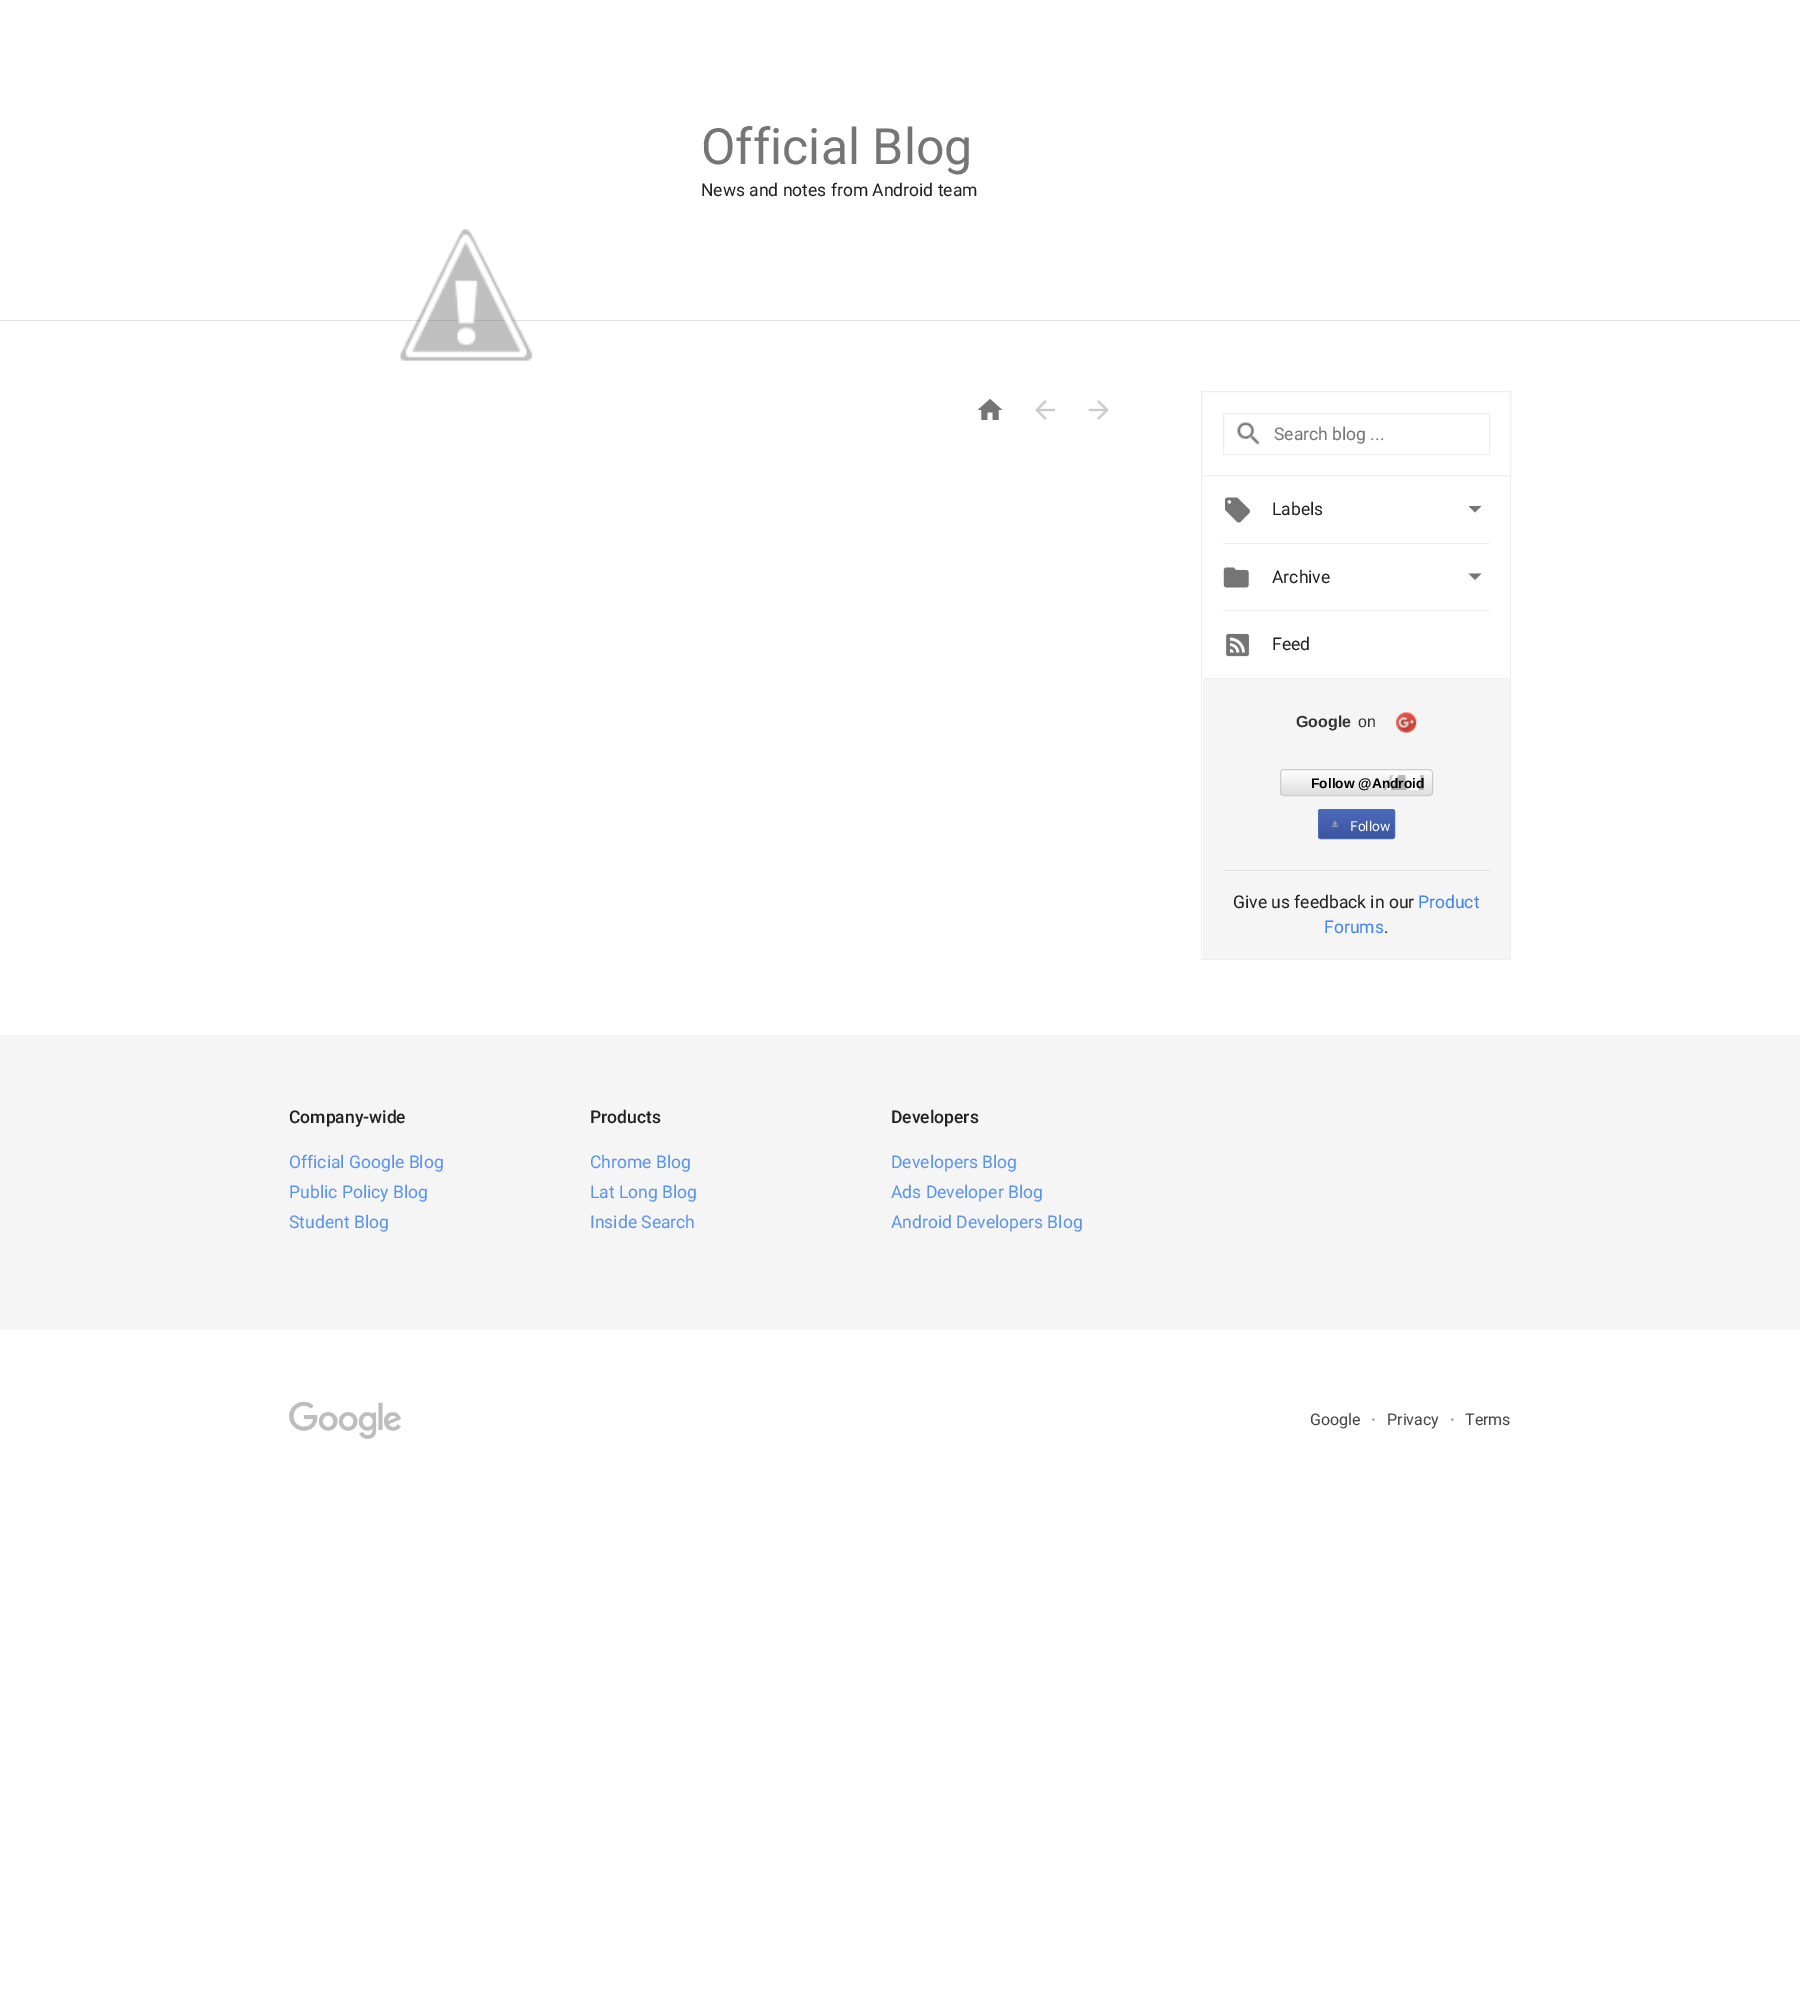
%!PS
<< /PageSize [1800 1989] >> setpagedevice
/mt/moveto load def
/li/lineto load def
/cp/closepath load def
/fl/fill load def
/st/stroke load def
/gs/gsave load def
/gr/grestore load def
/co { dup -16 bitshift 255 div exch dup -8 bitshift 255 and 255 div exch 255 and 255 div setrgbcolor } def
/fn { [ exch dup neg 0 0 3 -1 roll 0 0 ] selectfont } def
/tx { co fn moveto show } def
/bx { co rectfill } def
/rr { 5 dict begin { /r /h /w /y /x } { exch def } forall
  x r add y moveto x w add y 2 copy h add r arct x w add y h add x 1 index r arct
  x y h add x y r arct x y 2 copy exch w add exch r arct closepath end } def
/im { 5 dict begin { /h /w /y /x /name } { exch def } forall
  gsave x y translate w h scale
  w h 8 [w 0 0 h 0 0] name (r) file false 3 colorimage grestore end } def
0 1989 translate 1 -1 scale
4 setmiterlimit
0 0 1800 1989 16#FFFFFF bx
0 320 1800 1 16#E0E0E0 bx
(media/1.raw) 400 229 133 132 im
(media/2.raw) 977 399 26 21 im
(media/3.raw) 1035 400 20 20 im
(media/4.raw) 1088 400 21 20 im
16#EEEEEE co
1201.5 391.5 309 84 rectstroke
(media/5.raw) 1237 422 23 23 im
1223.5 413.5 266 41 rectstroke
1510 476 1 484 16#EEEEEE bx
1201 959 310 1 16#EEEEEE bx
1201 476 1 484 16#EEEEEE bx
1223 543 267 1 16#EEEEEE bx
(media/6.raw) 1225 497 25 26 im
16#757575 co
1468.5 506 mt 1481.5 506 li 1475 512.5 li cp fl
1223 610 267 1 16#EEEEEE bx
(media/7.raw) 1223 567 26 21 im
16#757575 co
1468.5 573.5 mt 1481.5 573.5 li 1475 580 li cp fl
(media/8.raw) 1226 633 23 24 im
1203 679 307 280 16#F5F5F5 bx
1203 678 307 1 16#EEEEEE bx
1223 870 267 1 16#E0E0E0 bx
(media/9.raw) 1396 712 21 21 im
gs
1280 769 153 27 4 rr clip newpath
gs 1280 770 mt 1433 770 li 1433 795 li 1280 795 li cp clip newpath
<< /ShadingType 2 /ColorSpace /DeviceRGB /Coords [1356 770 1356 795] /Extend [true true] /Function << /FunctionType 2 /Domain [0 1] /C0 [1 1 1] /C1 [.871 .871 .871] /N 1 >> >> shfill gr
gr
16#CCCCCC co
1280.5 769.5 152 26 3.5 rr st
(media/10.raw) 1383 775 41 15 im
gs
1318 809 77 30 2.5 rr clip newpath
gs 1318 810 mt 1395 810 li 1395 838 li 1318 838 li cp clip newpath
<< /ShadingType 2 /ColorSpace /DeviceRGB /Coords [1356 810 1356 838] /Extend [true true] /Function << /FunctionType 2 /Domain [0 1] /C0 [.298 .412 .729] /C1 [.231 .333 .627] /N 1 >> >> shfill gr
gr
16#4C69BA co
1318.5 809.5 76 29 2 rr st
(media/11.raw) 1332 820 7 7 im
0 1035 1800 295 16#F5F5F5 bx
(media/12.raw) 288 1401 113 38 im
(Official Blog) 701 164 /Roboto-Regular 50 16#757575 tx
(News and notes from Android team) 701 196 /Roboto-Regular 17.5 16#212121 tx
(Search blog ...) 1274 440 /Roboto-Regular 17.5 16#757575 tx
(Labels) 1272 515 /Roboto-Regular 17.5 16#212121 tx
(Archive) 1272 583 /Roboto-Regular 17.5 16#212121 tx
(Feed) 1272 650 /Roboto-Regular 17.5 16#212121 tx
(Google) 1296 727 /LiberationSans-Bold 16 16#333333 tx
(on) 1358 727 /LiberationSans-Regular 16 16#333333 tx
(Follow @Android) 1311 788 /LiberationSans-Bold 13.75 16#000000 tx
(Follow) 1350 831 /Roboto-Regular 13.75 16#FFFFFF tx
(Give us feedback in our) 1233 908 /Roboto-Regular 17.5 16#212121 tx
(Product) 1418 908 /Roboto-Regular 17.5 16#4184F3 tx
(Forums) 1324 933 /Roboto-Regular 17.5 16#4184F3 tx
(.) 1384 933 /Roboto-Regular 17.5 16#212121 tx
(Company-wide) 289 1123 /Roboto-Medium 17.5 16#212121 tx
(Official Google Blog) 289 1168 /Roboto-Regular 17.5 16#5893F3 tx
(Public Policy Blog) 289 1198 /Roboto-Regular 17.5 16#5893F3 tx
(Student Blog) 289 1228 /Roboto-Regular 17.5 16#5893F3 tx
(Products) 590 1123 /Roboto-Medium 17.5 16#212121 tx
(Chrome Blog) 590 1168 /Roboto-Regular 17.5 16#5893F3 tx
(Lat Long Blog) 590 1198 /Roboto-Regular 17.5 16#5893F3 tx
(Inside Search) 590 1228 /Roboto-Regular 17.5 16#5893F3 tx
(Developers) 891 1123 /Roboto-Medium 17.5 16#212121 tx
(Developers Blog) 891 1168 /Roboto-Regular 17.5 16#5893F3 tx
(Ads Developer Blog) 891 1198 /Roboto-Regular 17.5 16#5893F3 tx
(Android Developers Blog) 891 1228 /Roboto-Regular 17.5 16#5893F3 tx
(Google) 1310 1425 /Roboto-Regular 16 16#444444 tx
(·) 1371 1425 /Roboto-Bold 16 16#999999 tx
(Privacy) 1387 1425 /Roboto-Regular 16 16#444444 tx
(·) 1450 1425 /Roboto-Bold 16 16#999999 tx
(Terms) 1465 1425 /Roboto-Regular 16 16#444444 tx
showpage
